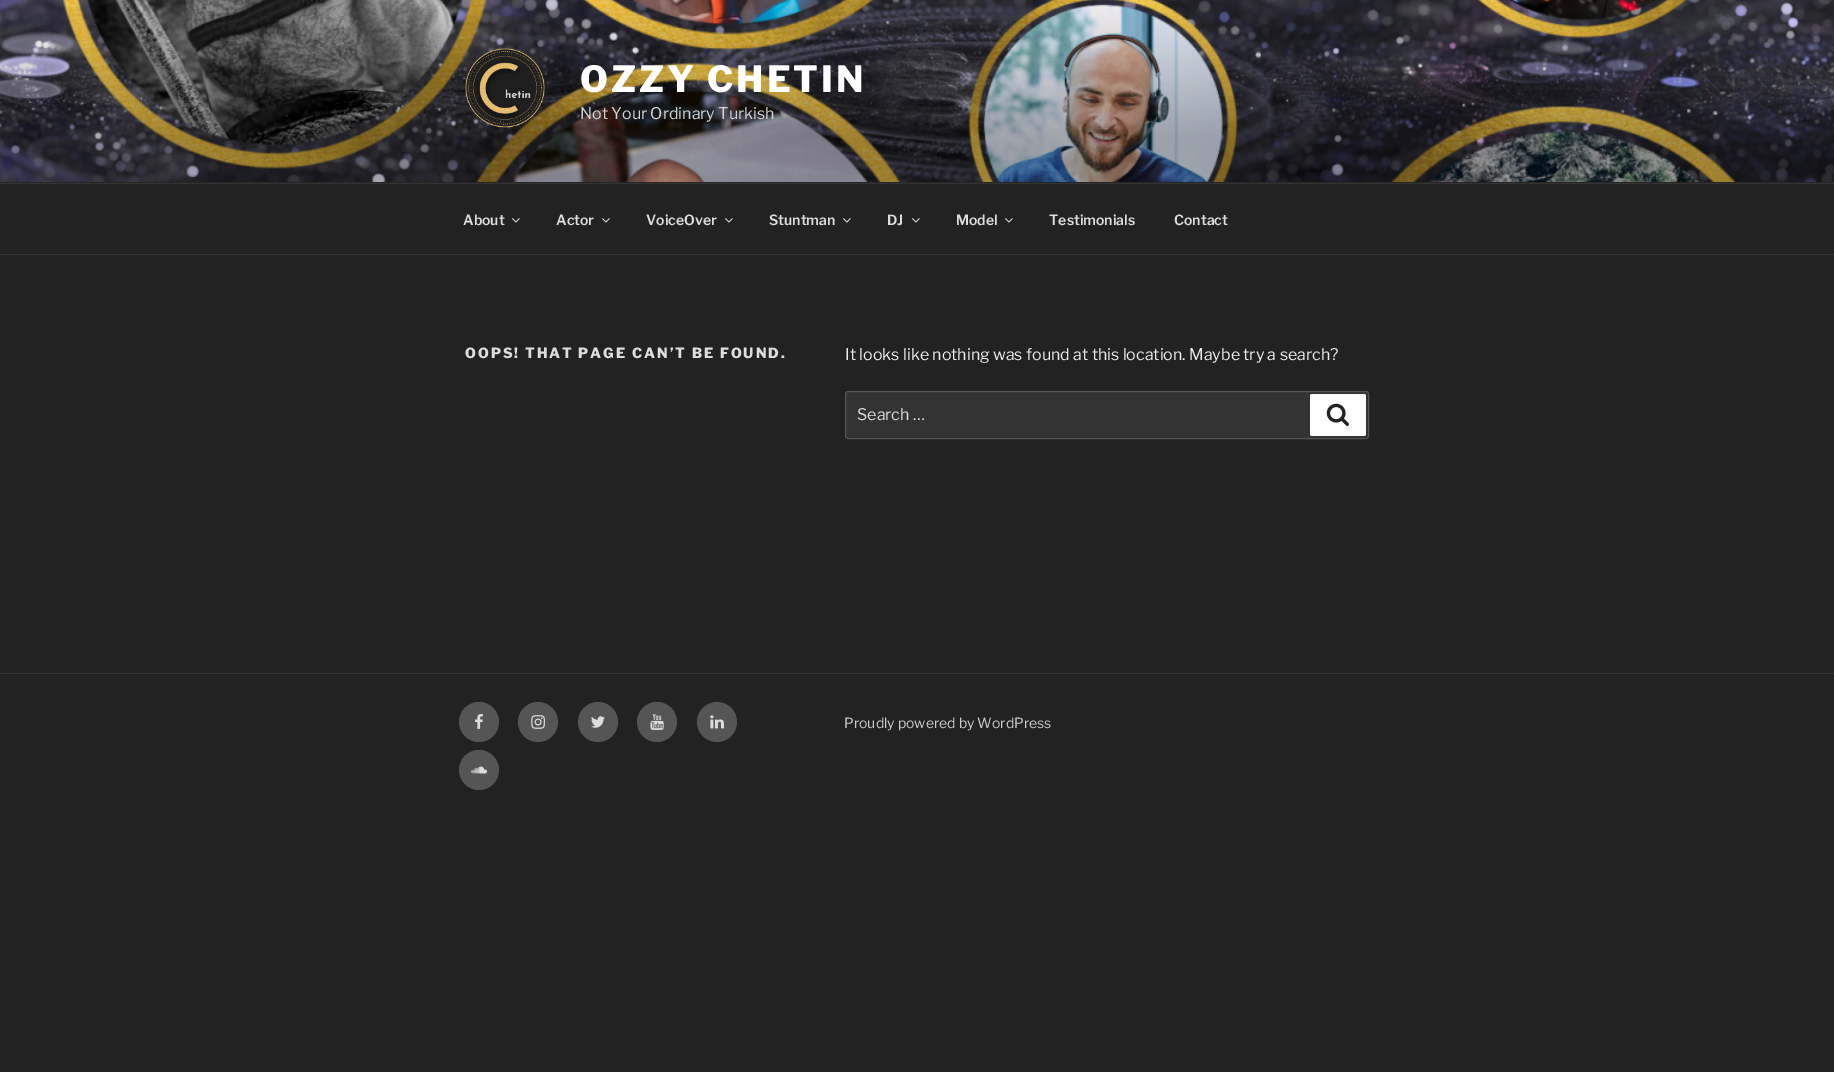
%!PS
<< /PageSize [1834 1072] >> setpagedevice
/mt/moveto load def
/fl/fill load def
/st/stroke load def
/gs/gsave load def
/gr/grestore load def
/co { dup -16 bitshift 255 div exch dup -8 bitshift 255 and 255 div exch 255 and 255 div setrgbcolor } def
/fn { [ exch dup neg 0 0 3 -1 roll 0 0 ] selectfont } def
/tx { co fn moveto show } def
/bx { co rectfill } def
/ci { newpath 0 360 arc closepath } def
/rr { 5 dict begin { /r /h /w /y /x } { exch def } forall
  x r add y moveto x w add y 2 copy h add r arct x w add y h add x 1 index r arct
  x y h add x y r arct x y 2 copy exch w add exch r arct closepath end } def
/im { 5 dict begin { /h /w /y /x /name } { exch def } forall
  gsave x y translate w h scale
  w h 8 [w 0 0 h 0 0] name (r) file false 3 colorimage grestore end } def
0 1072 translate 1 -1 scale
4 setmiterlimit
0 0 1834 1072 16#222222 bx
0 182 1834 1 16#262626 bx
(media/1.raw) 0 0 1834 182 im
(media/2.raw) 465 48 80 80 im
0 183 1834 1 16#333333 bx
0 254 1834 1 16#333333 bx
(media/3.raw) 512 218 8 5 im
(media/3.raw) 602 218 8 5 im
(media/3.raw) 725 218 8 5 im
(media/3.raw) 843 218 8 5 im
(media/3.raw) 912 218 8 5 im
(media/3.raw) 1005 218 8 5 im
845.5 391.5 523 47 2.5 rr gs fl gr
16#555555 co
st
16#FFFFFF co
1310 394 56 42 2 rr fl
(media/4.raw) 1326 403 23 23 im
0 673 1834 1 16#333333 bx
16#555555 co
479 722 20 ci fl
(media/5.raw) 475 714 8 15 im
538 722 20 ci fl
(media/6.raw) 531 715 14 14 im
598 722 20 ci fl
(media/7.raw) 591 716 14 12 im
657 722 20 ci fl
(media/8.raw) 650 714 14 16 im
717 722 20 ci fl
(media/9.raw) 710 715 14 14 im
479 770 20 ci fl
(media/10.raw) 471 766 16 8 im
/LibreFranklin-Thin 36 fn
16#FFFFFF co
580 92 mt 2.9 0 (OZZY CHETIN) ashow
(Not Your Ordinary Turkish) 580 119 /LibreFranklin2-Thin 16 16#D3D3D4 tx
(About) 463 225 /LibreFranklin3-Thin 14 16#DDDDDD tx
(Actor) 556 225 /LibreFranklin3-Thin 14 16#DDDDDD tx
(VoiceOver) 646 225 /LibreFranklin3-Thin 14 16#DDDDDD tx
(Stuntman) 769 225 /LibreFranklin3-Thin 14 16#DDDDDD tx
(DJ) 887 225 /LibreFranklin3-Thin 14 16#DDDDDD tx
(Model) 956 225 /LibreFranklin3-Thin 14 16#DDDDDD tx
(Testimonials) 1049 225 /LibreFranklin3-Thin 14 16#DDDDDD tx
(Contact) 1174 225 /LibreFranklin3-Thin 14 16#DDDDDD tx
/LibreFranklin-Thin 14 fn
465 358 mt 1.95 0 (OOPS! THAT PAGE CAN’T BE FOUND.) ashow
(It looks like nothing was found at this location. Maybe try a search?) 845 360 /LibreFranklin2-Thin 16 16#EEEEEE tx
(Search …) 857 420 /LibreFranklin2-Thin 16 16#DDDDDD tx
(Proudly powered by WordPress) 844 728 /LibreFranklin2-Thin 14 16#CCCCCC tx
showpage
